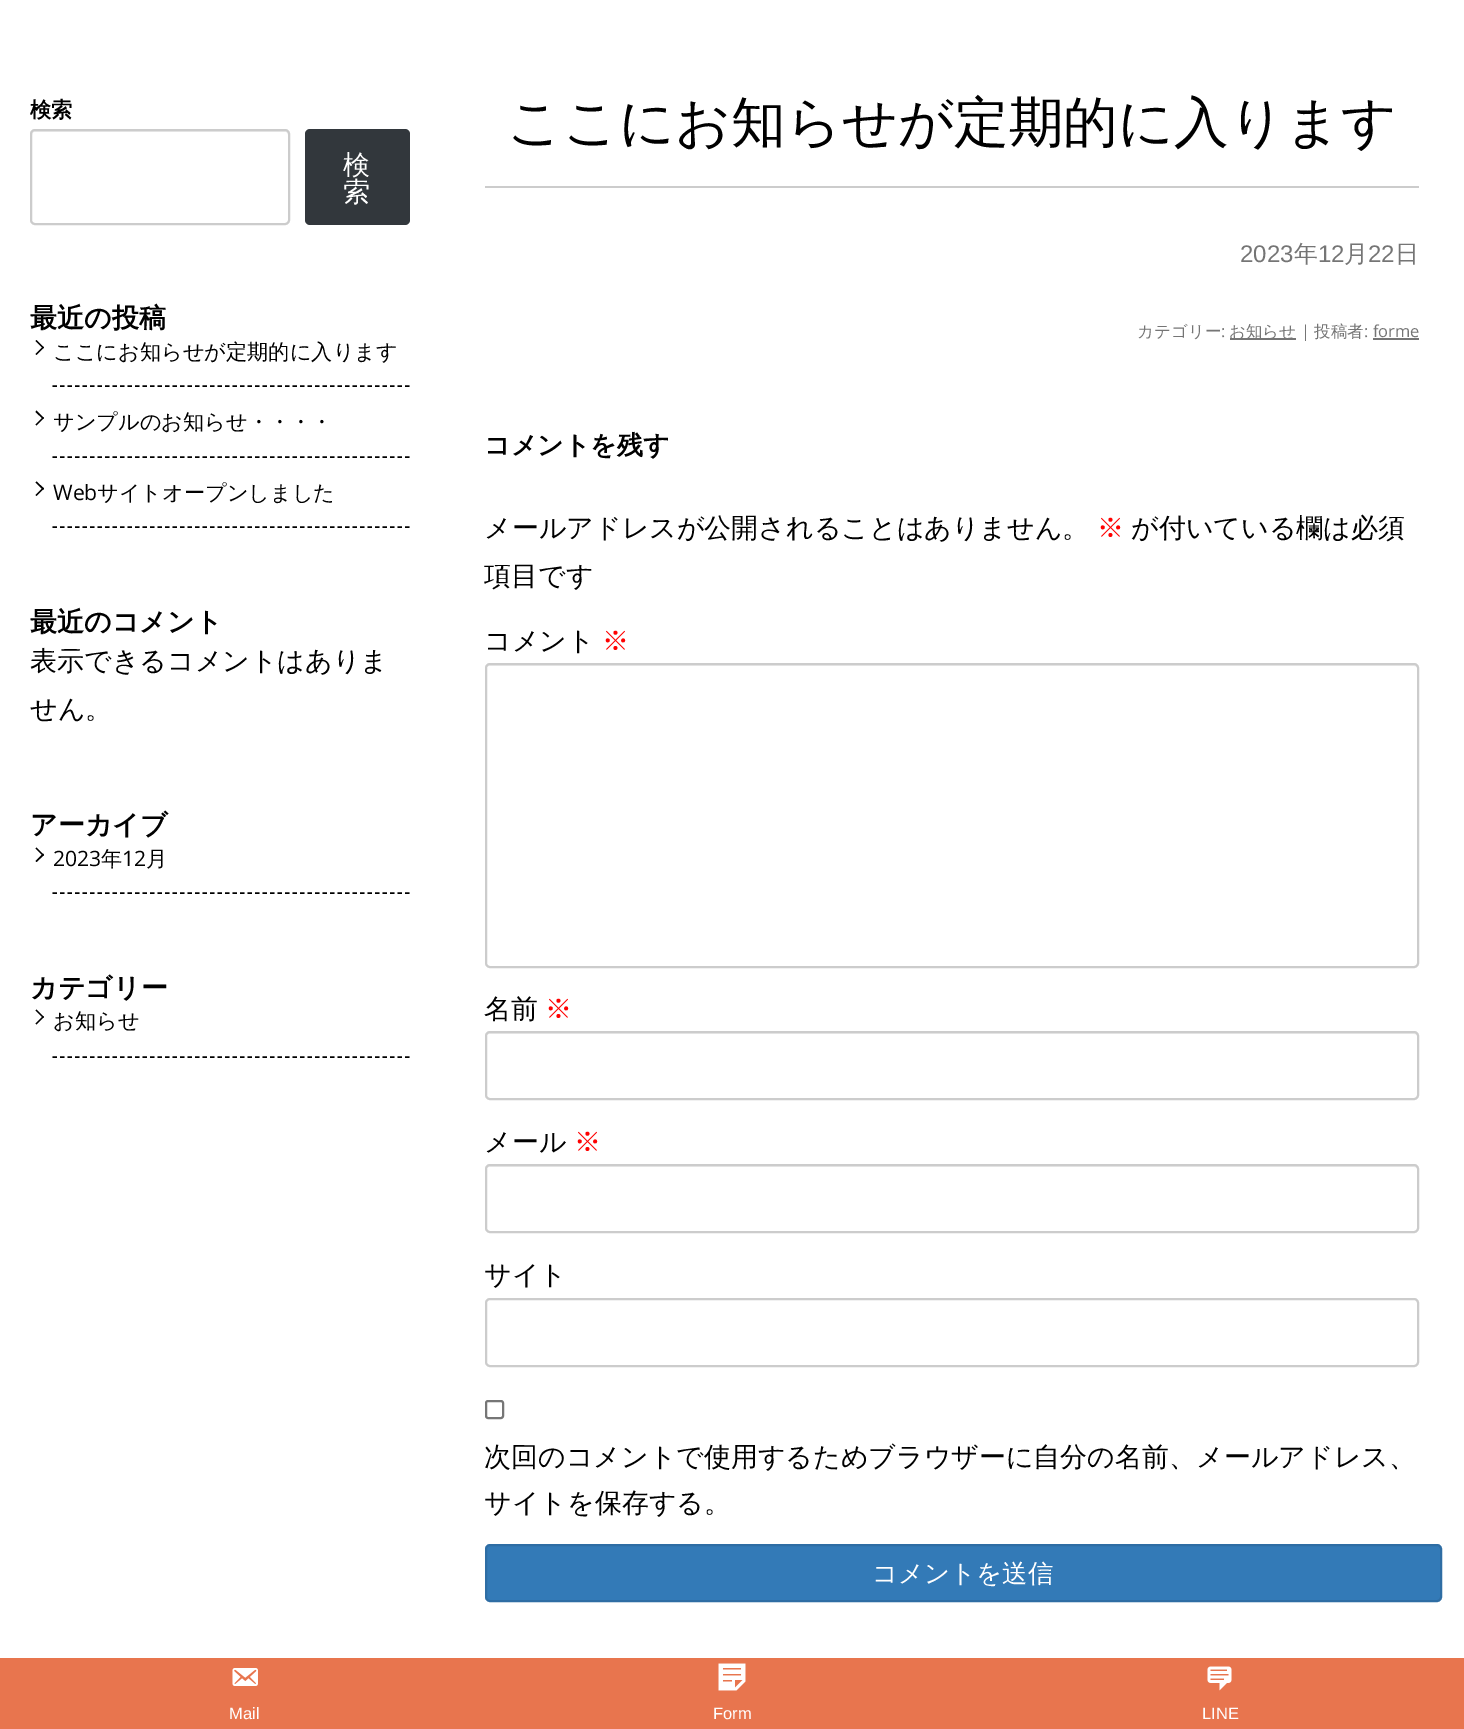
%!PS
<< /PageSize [1464 1729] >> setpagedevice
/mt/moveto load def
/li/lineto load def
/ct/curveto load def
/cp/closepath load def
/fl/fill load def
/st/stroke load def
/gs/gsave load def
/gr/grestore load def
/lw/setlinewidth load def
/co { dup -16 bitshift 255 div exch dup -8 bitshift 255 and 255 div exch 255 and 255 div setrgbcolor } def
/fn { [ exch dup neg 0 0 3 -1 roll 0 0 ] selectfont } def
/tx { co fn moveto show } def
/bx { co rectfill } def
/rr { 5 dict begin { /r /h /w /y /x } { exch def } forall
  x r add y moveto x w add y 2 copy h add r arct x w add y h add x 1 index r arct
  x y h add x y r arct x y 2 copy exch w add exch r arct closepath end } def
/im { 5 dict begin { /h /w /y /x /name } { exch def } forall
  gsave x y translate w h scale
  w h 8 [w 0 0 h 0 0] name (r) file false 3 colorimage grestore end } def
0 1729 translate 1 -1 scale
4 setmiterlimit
0 0 1464 1729 16#FFFFFF bx
16#ECECEC co
34 132 mt 286 132 li 288 133 li 288 135 li 288 133 287 131 285 131 ct 35 131 li 33 131 32 133 32 135 ct 32 133 33 132 34 132 ct cp fl
16#CCCCCC co
2 lw
31 130 258 94 4 rr st
16#32373C co
305 129 105 96 5 rr fl
16#000000 co
1.5 lw
[4.5 3] 0 setdash
52.5 386 mt 409.5 386 li st
35.5 341 mt 36.5 340 li 44 347.5 li 43 348.5 li cp fl
35.5 354 mt 43 346.5 li 44 347.5 li 36.5 355 li cp fl
52.5 457 mt 409.5 457 li st
35.5 412 mt 36.5 410.5 li 44 418 li 43 419 li cp fl
35.5 424.5 mt 43 417 li 44 418 li 36.5 425.5 li cp fl
52.5 527 mt 409.5 527 li st
35.5 482.5 mt 36.5 481.5 li 44 488.5 li 43 490 li cp fl
35.5 495 mt 43 487.5 li 44 488.5 li 36.5 496 li cp fl
52.5 893 mt 409.5 893 li st
35.5 848.5 mt 36.5 847.5 li 44 855 li 43 856 li cp fl
35.5 861 mt 43 853.5 li 44 855 li 36.5 862 li cp fl
52.5 1057 mt 409.5 1057 li st
35.5 1010.5 mt 36.5 1009.5 li 44 1017 li 43 1018 li cp fl
35.5 1023.5 mt 43 1016 li 44 1017 li 36.5 1024.5 li cp fl
485 186 934 2 16#CCCCCC bx
1230 338 66 2 16#757575 bx
1373 338 46 2 16#757575 bx
16#ECECEC co
489 666 mt 1414 666 li 1416 666 1418 667 1418 669 ct 1418 667 1417 665 1415 665 ct 489 665 li 487 665 486 667 486 669 ct 486 667 487 666 489 666 ct cp fl
16#CCCCCC co
2 lw
[] 0 setdash
486 664 932 303 4 rr st
16#ECECEC co
489 1034 mt 1414 1034 li 1416 1034 1418 1035 1418 1036 ct 1418 1034 1417 1032 1415 1032 ct 489 1032 li 487 1032 486 1034 486 1036 ct 486 1035 487 1034 489 1034 ct cp fl
16#CCCCCC co
486 1032 932 67 4 rr st
16#ECECEC co
489 1167 mt 1414 1167 li 1416 1167 1418 1168 1418 1170 ct 1418 1168 1417 1166 1415 1166 ct 489 1166 li 487 1166 486 1168 486 1170 ct 486 1168 487 1167 489 1167 ct cp fl
16#CCCCCC co
486 1165 932 67 4 rr st
486 1299 932 67 4 rr st
16#767676 co
486 1401 17 17 2 rr st
16#337AB7 co
486 1545 955 56 4 rr gs fl gr
16#2E6DA4 co
st
0 1658 1464 71 16#E8754E bx
(media/1.raw) 232 1668 26 18 im
(media/2.raw) 718 1663 28 28 im
(media/3.raw) 1207 1666 25 25 im
(検索) 30 117 /WenQuanYiZenHei-Bold 21.2 16#000000 tx
(検) 343 174 /WenQuanYiZenHei-Medium 27 16#FFFFFF tx
(索) 343 201 /WenQuanYiZenHei-Medium 27 16#FFFFFF tx
(最近の投稿) 30 327 /WenQuanYiZenHei-Bold 27 16#000000 tx
(ここにお知らせが定期的に入ります) 53 359 /WenQuanYiZenHei-Medium 21.2 16#000000 tx
(サンプルのお知らせ・・・・) 53 429 /WenQuanYiZenHei-Medium 21.2 16#000000 tx
(Web) 53 500 /OpenSans-Regular 21.2 16#000000 tx
(サイトオープンしました) 97 500 /WenQuanYiZenHei-Medium 21.2 16#000000 tx
(最近のコメント) 30 631 /WenQuanYiZenHei-Bold 27 16#000000 tx
(表示できるコメントはありま) 30 670 /WenQuanYiZenHei-Medium 27 16#000000 tx
(せん。) 30 718 /WenQuanYiZenHei-Medium 27 16#000000 tx
(アーカイブ) 30 834 /WenQuanYiZenHei-Bold 27 16#000000 tx
(2023) 53 866 /OpenSans-Regular 21.2 16#000000 tx
(年) 101 866 /WenQuanYiZenHei-Medium 21.2 16#000000 tx
(12) 122 866 /OpenSans-Regular 21.2 16#000000 tx
(月) 146 866 /WenQuanYiZenHei-Medium 21.2 16#000000 tx
(カテゴリー) 30 997 /WenQuanYiZenHei-Bold 27 16#000000 tx
(お知らせ) 53 1028 /WenQuanYiZenHei-Medium 21.2 16#000000 tx
(ここにお知らせが定期的に入ります) 507 141 /WenQuanYiZenHei-Medium 54.75 16#000000 tx
(2023) 1240 262 /LiberationSans-Regular 24 16#757575 tx
(年) 1294 262 /WenQuanYiZenHei-Medium 24 16#757575 tx
(12) 1318 262 /LiberationSans-Regular 24 16#757575 tx
(月) 1344 262 /WenQuanYiZenHei-Medium 24 16#757575 tx
(22) 1368 262 /LiberationSans-Regular 24 16#757575 tx
(日) 1395 262 /WenQuanYiZenHei-Medium 24 16#757575 tx
(カテゴリー) 1137 337 /WenQuanYiZenHei-Medium 16.5 16#757575 tx
(:) 1221 337 /OpenSans-Regular 16.5 16#757575 tx
(お知らせ) 1229 337 /WenQuanYiZenHei-Medium 16.5 16#757575 tx
(|) 1301 337 /OpenSans-Regular 16.5 16#757575 tx
(投稿者) 1314 337 /WenQuanYiZenHei-Medium 16.5 16#757575 tx
(: forme) 1364 337 /OpenSans-Regular 16.5 16#757575 tx
(コメントを残す) 484 454 /WenQuanYiZenHei-Bold 26 16#000000 tx
(メールアドレスが公開されることはありません。) 484 537 /WenQuanYiZenHei-Medium 27 16#000000 tx
(※) 1097 537 /WenQuanYiZenHei-Medium 27 16#FF0000 tx
(が付いている欄は必須) 1131 537 /WenQuanYiZenHei-Medium 27 16#000000 tx
(項目です) 484 585 /WenQuanYiZenHei-Medium 27 16#000000 tx
(コメント) 484 650 /WenQuanYiZenHei-Medium 27 16#000000 tx
(※) 602 650 /WenQuanYiZenHei-Medium 27 16#FF0000 tx
(名前) 484 1018 /WenQuanYiZenHei-Medium 27 16#000000 tx
(※) 545 1018 /WenQuanYiZenHei-Medium 27 16#FF0000 tx
(メール) 484 1151 /WenQuanYiZenHei-Medium 27 16#000000 tx
(※) 574 1151 /WenQuanYiZenHei-Medium 27 16#FF0000 tx
(サイト) 484 1284 /WenQuanYiZenHei-Medium 27 16#000000 tx
(次回のコメントで使用するためブラウザーに自分の名前、メールアドレス、) 484 1466 /WenQuanYiZenHei-Medium 27 16#000000 tx
(サイトを保存する。) 484 1512 /WenQuanYiZenHei-Medium 27 16#000000 tx
(コメントを送信) 872 1582 /WenQuanYiZenHei-Medium 25.5 16#FFFFFF tx
(Mail) 229 1719 /LiberationSans-Regular 16.5 16#FFFFFF tx
(Form) 713 1719 /LiberationSans-Regular 16.5 16#FFFFFF tx
(LINE) 1202 1719 /LiberationSans-Regular 16.5 16#FFFFFF tx
showpage
